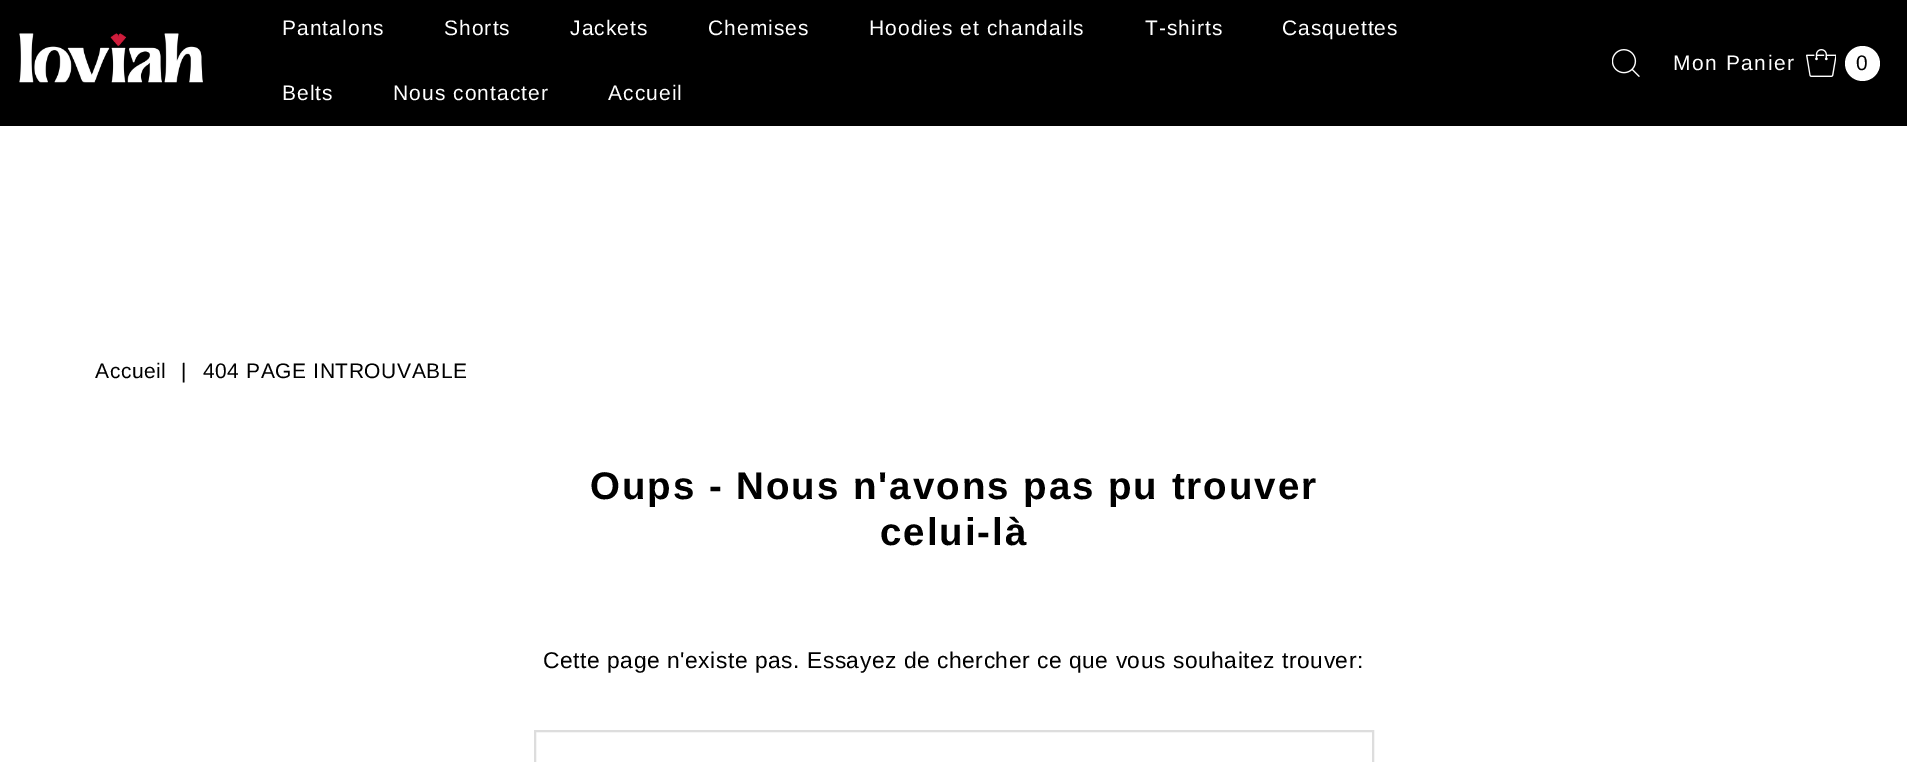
%!PS
<< /PageSize [1907 762] >> setpagedevice
/mt/moveto load def
/fl/fill load def
/lw/setlinewidth load def
/co { dup -16 bitshift 255 div exch dup -8 bitshift 255 and 255 div exch 255 and 255 div setrgbcolor } def
/fn { [ exch dup neg 0 0 3 -1 roll 0 0 ] selectfont } def
/tx { co fn moveto show } def
/bx { co rectfill } def
/ci { newpath 0 360 arc closepath } def
/im { 5 dict begin { /h /w /y /x /name } { exch def } forall
  gsave x y translate w h scale
  w h 8 [w 0 0 h 0 0] name (r) file false 3 colorimage grestore end } def
0 762 translate 1 -1 scale
4 setmiterlimit
0 0 1907 762 16#FFFFFF bx
0 0 1907 126 16#000000 bx
(media/1.raw) 19 33 184 50 im
(media/2.raw) 1612 49 28 28 im
(media/3.raw) 1806 49 30 28 im
16#FFFFFF co
1862.5 63.5 17.5 ci fl
16#DDDDDD co
2 lw
535 731 838 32 rectstroke
/LiberationSans-Regular 21 fn
16#FFFFFF co
282 35 mt 1.05 0 (Pantalons) ashow
444 35 mt 1.05 0 (Shorts) ashow
570 35 mt 1.05 0 (Jackets) ashow
708 35 mt 1.05 0 (Chemises) ashow
869 35 mt 1.05 0 (Hoodies et chandails) ashow
1145 35 mt 1.05 0 (T-shirts) ashow
1282 35 mt 1.05 0 (Casquettes) ashow
282 100 mt 1.05 0 (Belts) ashow
393 100 mt 1.05 0 (Nous contacter) ashow
608 100 mt 1.05 0 (Accueil) ashow
1673 70 mt 1.5 0 (Mon Panier) ashow
(0) 1856 70 /LiberationSans-Regular 21 16#000000 tx
95 378 mt .57 0 (Accueil) ashow
181 378 mt .57 0 (|) ashow
203 378 mt .57 0 (404 PAGE INTROUVABLE) ashow
/LiberationSans-Bold 38.5 fn
590 499 mt 1.95 0 (Oups - Nous n'avons pas pu trouver) ashow
880 545 mt 1.95 0 (celui-là) ashow
/LiberationSans-Regular 22.75 fn
543 668 mt .57 0 (Cette page n'existe pas. Essayez de chercher ce que vous souhaitez trouver:) ashow
showpage
